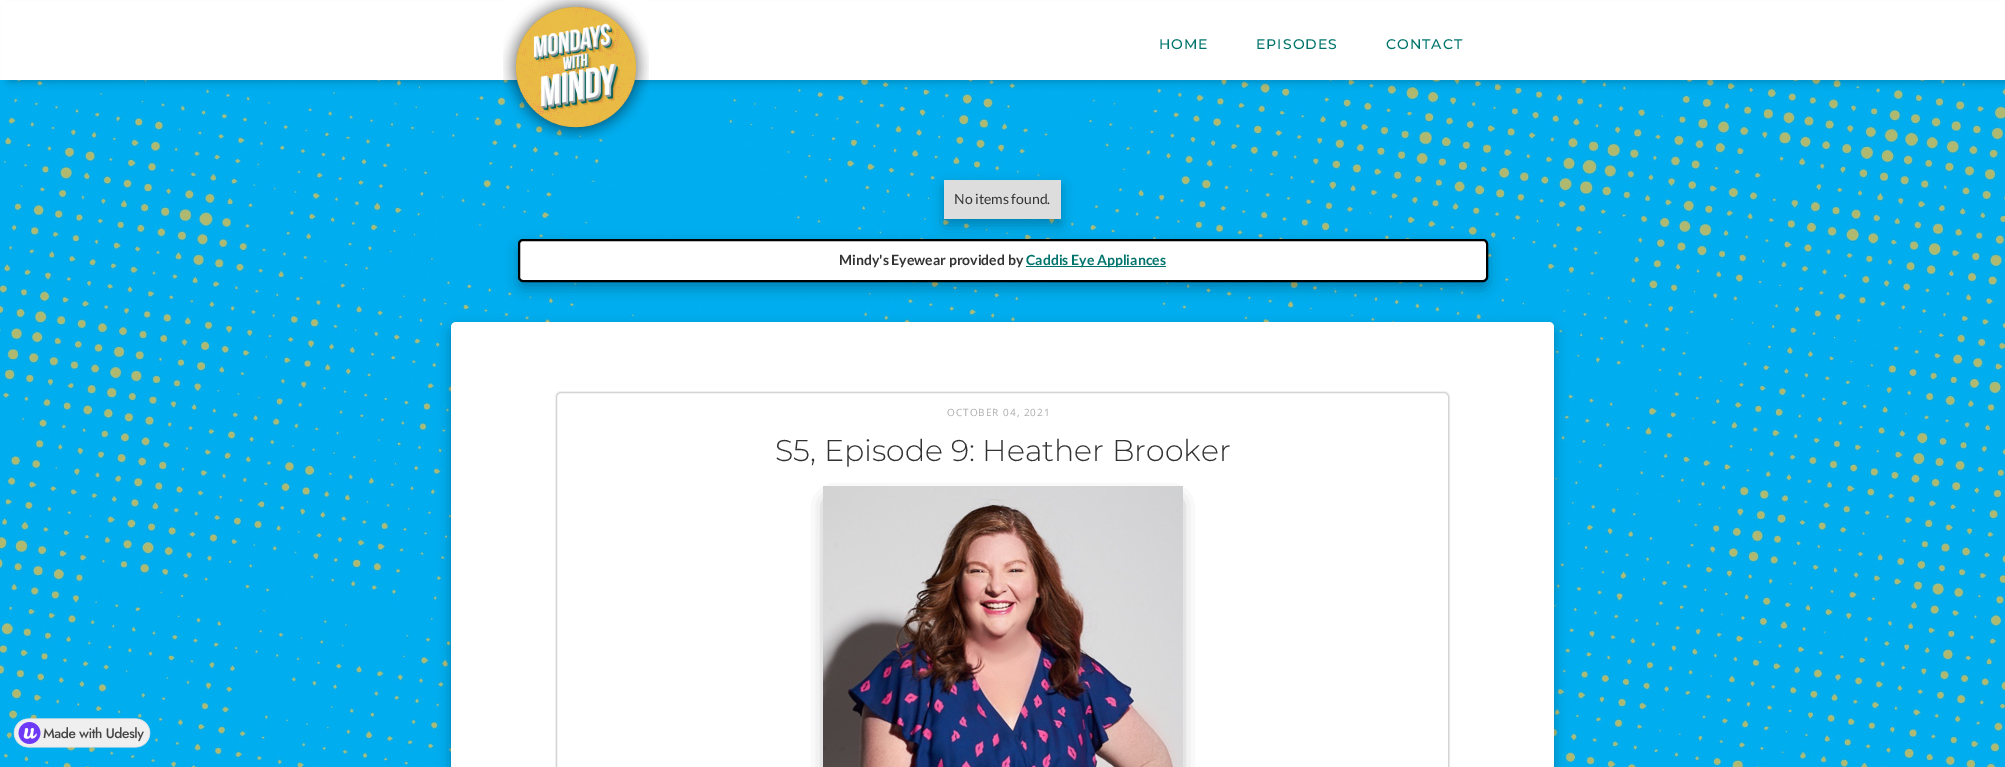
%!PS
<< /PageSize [2005 767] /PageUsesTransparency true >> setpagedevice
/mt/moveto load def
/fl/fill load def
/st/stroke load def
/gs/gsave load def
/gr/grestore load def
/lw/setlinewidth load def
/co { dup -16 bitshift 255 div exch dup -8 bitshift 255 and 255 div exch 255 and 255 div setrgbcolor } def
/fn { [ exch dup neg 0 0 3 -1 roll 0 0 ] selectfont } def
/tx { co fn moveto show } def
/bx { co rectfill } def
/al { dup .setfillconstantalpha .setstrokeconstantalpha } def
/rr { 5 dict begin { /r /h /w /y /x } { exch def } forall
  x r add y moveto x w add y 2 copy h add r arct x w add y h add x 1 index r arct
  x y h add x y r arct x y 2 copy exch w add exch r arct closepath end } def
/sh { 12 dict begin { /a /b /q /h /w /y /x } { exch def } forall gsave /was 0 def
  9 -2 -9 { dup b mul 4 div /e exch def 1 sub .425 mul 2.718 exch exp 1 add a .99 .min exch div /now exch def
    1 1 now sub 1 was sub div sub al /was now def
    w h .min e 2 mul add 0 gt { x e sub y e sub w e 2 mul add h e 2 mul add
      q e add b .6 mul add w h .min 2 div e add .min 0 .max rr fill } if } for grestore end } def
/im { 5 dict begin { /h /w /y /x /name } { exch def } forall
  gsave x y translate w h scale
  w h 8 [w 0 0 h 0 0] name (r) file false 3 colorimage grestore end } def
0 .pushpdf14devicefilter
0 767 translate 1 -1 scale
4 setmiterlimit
0 0 2005 767 16#FFFFFF bx
(media/1.raw) 0 80 2005 687 im
16#000000 co
9 9 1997 72 0 4.5 .25 sh
1 1 2004 79 16#FFFFFF bx
(media/2.raw) 503 0 146 140 im
(media/3.raw) 503 0 146 140 im
16#000000 co
944 186 117 39 0 6.5 .25 sh
944 180 117 39 16#DDDDDD bx
16#000000 co
518 245 970 43 5 6.5 .25 sh
16#FFFFFF co
519 240 968 41 4 rr gs fl gr
16#000000 co
2 lw
st
1026 266 140 1 16#00746B bx
16#000000 co
451 328 1103 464 5 6.5 .25 sh
16#FFFFFF co
451 322 1103 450 5 rr fl
16#F0F0F0 co
1 lw
555.5 391.5 894 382 5.5 rr st
16#FFFFFF co
556.5 392.5 892 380 4.5 rr gs fl gr
16#D4D4D4 co
st
16#000000 co
831 503 344 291 0 9 .69 sh
(media/4.raw) 823 486 360 281 im
(media/5.raw) 13 718 138 30 im
/Montserrat-Medium 14 fn
16#00746B co
1159 49 mt 1 0 (HOME) ashow
1256 49 mt 1 0 (EPISODES) ashow
1386 49 mt 1 0 (CONTACT) ashow
(No items found.) 954 204 /Lato-Regular 14 16#333333 tx
(Mindy's Eyewear provided by) 839 265 /Lato-Bold 14 16#333333 tx
(Caddis Eye Appliances) 1026 265 /Lato-Bold 14 16#00746B tx
/OpenSans-Regular 10 fn
16#AAAAAA co
947 416 mt 1 0 (OCTOBER 04, 2021) ashow
(S5, Episode 9: Heather Brooker) 775 461 /Montserrat-Light 30 16#333333 tx
.poppdf14devicefilter showpage
